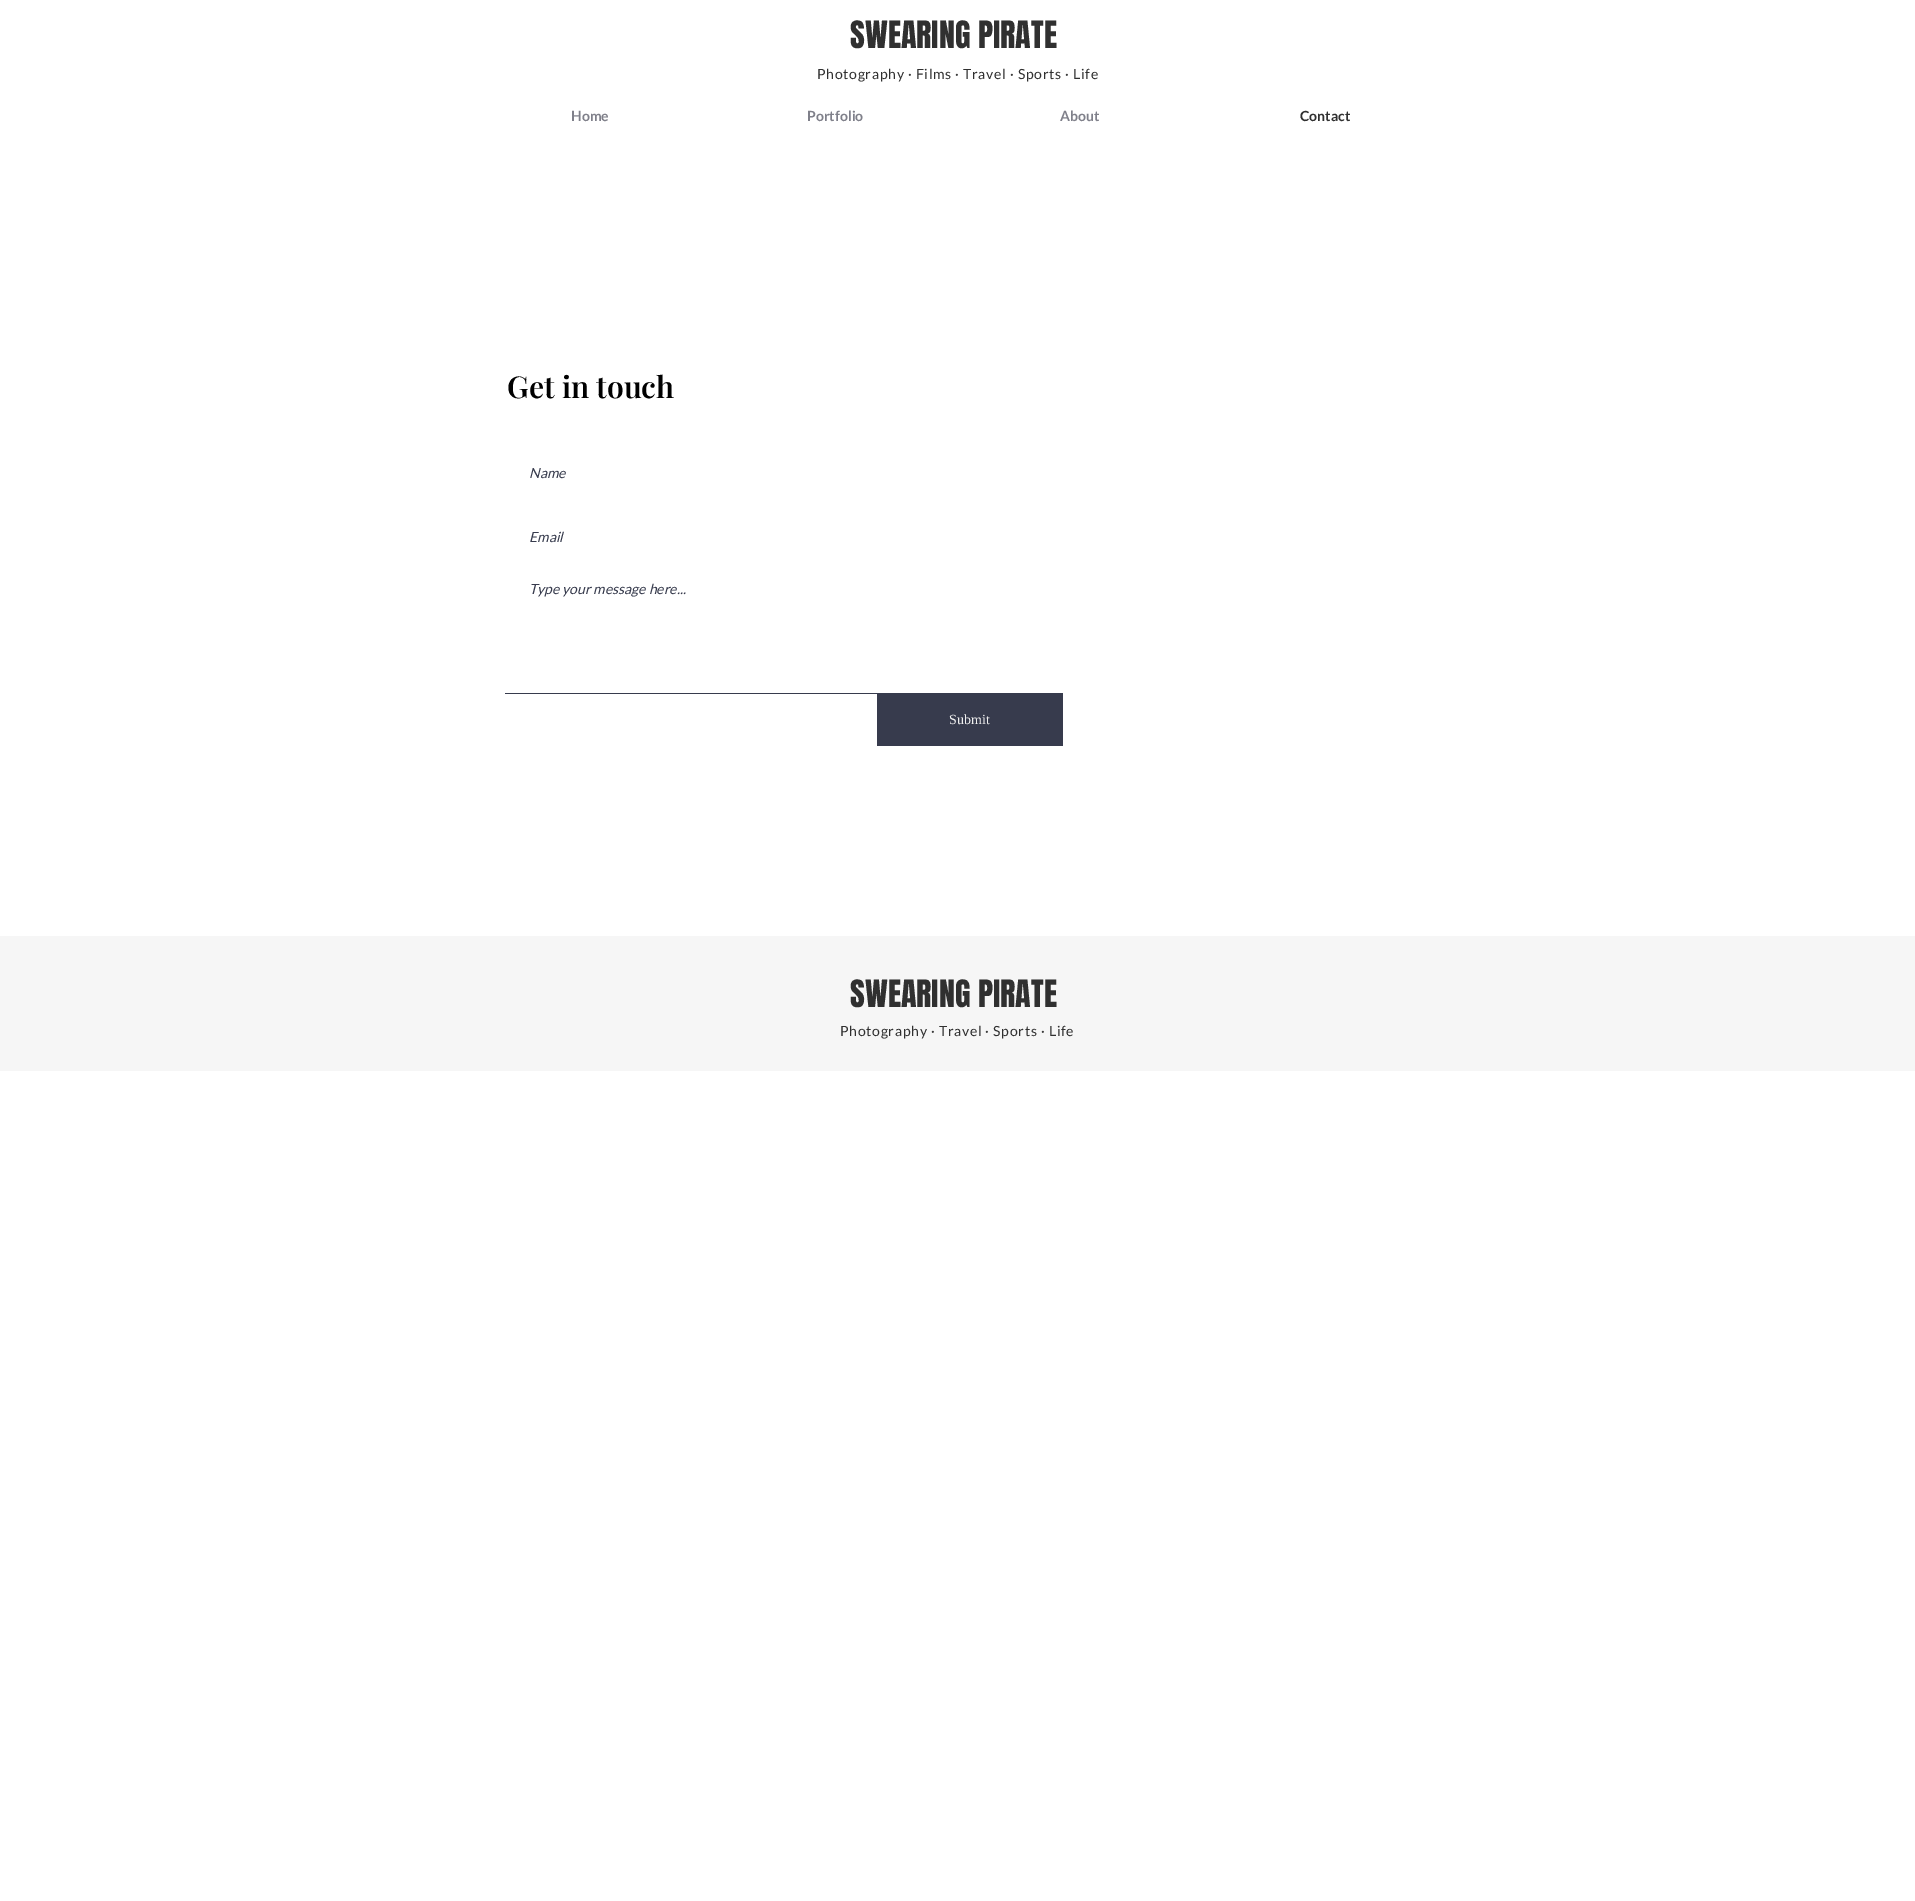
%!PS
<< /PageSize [1915 1901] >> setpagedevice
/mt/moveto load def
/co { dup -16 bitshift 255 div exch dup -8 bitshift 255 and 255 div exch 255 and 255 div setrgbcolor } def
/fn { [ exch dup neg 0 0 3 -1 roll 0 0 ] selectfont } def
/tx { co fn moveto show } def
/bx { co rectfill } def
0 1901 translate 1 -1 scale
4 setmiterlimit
0 0 1915 1901 16#FFFFFF bx
505 693 558 1 16#373B4D bx
877 694 186 52 16#373B4D bx
0 936 1915 135 16#F6F6F6 bx
(SWEARING PIRATE) 850 48 /Anton-Regular 32 16#303030 tx
/Lato-Regular 14 fn
817 79 mt .7 0 (Photography · Films · Travel · Sports · Life) ashow
(Home) 571 121 /Lato-Bold 14 16#7F808A tx
(Portfolio) 807 121 /Lato-Bold 14 16#7F808A tx
(About) 1060 121 /Lato-Bold 14 16#7F808A tx
(Contact) 1300 121 /Lato-Bold 14 16#303030 tx
(Get in touch) 507 398 /PlayfairDisplay-SemiBold 30 16#000000 tx
(Name) 529 478 /Lato-Italic 14 16#373B4D tx
(Email) 529 542 /Lato-Italic 14 16#373B4D tx
(Type your message here...) 529 594 /Lato-Italic 14 16#373B4D tx
(Submit) 949 724 /LiberationSerif-Regular 14 16#F0F0F0 tx
(SWEARING PIRATE) 850 1007 /Anton-Regular 32 16#303030 tx
/Lato-Regular 14 fn
840 1036 mt .7 0 (Photography · Travel · Sports · Life) ashow
showpage
